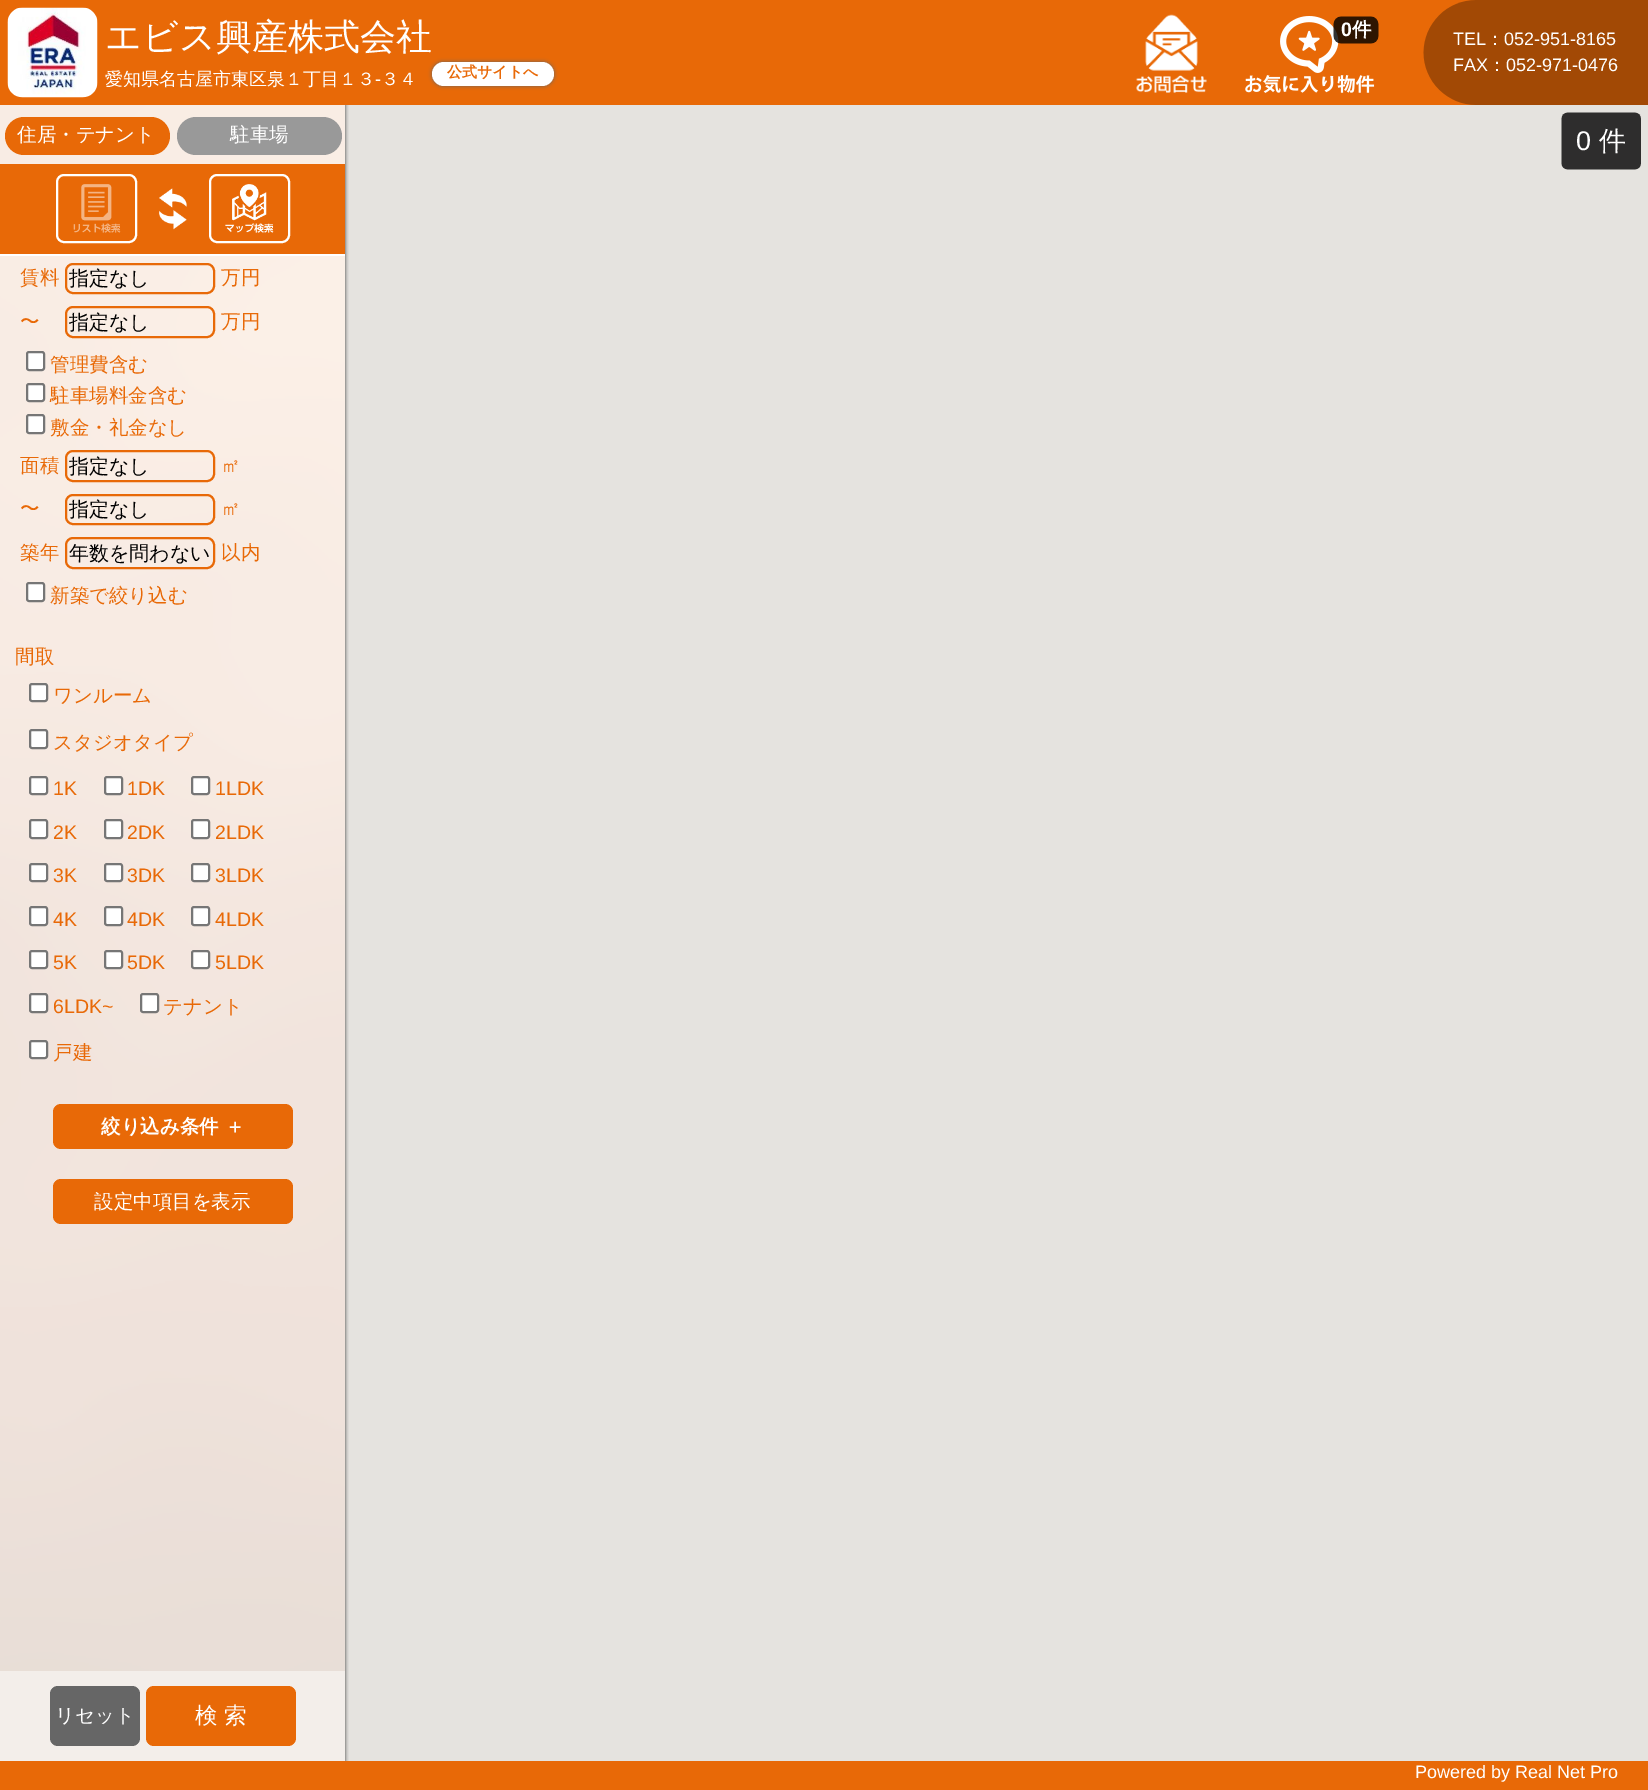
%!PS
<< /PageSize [1648 1790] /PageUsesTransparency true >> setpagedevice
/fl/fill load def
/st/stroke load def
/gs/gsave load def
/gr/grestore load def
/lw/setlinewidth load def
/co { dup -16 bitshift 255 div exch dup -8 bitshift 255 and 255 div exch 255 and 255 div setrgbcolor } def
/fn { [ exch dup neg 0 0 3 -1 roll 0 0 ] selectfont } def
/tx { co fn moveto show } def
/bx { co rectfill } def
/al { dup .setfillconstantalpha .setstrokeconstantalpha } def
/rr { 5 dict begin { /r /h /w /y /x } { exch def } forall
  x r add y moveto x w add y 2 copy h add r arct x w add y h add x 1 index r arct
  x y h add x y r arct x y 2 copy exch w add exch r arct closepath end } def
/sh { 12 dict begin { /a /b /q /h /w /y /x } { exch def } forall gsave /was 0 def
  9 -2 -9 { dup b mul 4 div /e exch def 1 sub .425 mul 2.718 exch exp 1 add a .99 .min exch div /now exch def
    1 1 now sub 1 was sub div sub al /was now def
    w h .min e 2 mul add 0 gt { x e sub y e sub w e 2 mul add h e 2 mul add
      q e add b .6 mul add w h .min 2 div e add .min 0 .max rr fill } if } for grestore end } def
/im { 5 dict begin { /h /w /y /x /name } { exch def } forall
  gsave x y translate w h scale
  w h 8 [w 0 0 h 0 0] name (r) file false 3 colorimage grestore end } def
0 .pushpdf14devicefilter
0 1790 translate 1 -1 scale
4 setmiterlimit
0 0 1648 1790 16#FFFFFF bx
(media/1.raw) 0 105 345 1566 im
(media/2.raw) 0 105 345 1566 im
0 0 1648 105 16#E86907 bx
(media/3.raw) 7 7 91 91 im
16#666666 co
432 62 122 24 12 2 1 sh
16#FFFFFF co
432 62 122 24 12 rr fl
(media/4.raw) 1136 14 71 79 im
(media/5.raw) 1245 16 130 77 im
(media/6.raw) 1333 16 46 28 im
(media/7.raw) 1423 0 225 105 im
345 105 1303 1656 16#E5E3DF bx
0 1761 1648 29 16#E86907 bx
gs
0 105 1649 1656 rectclip
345 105 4 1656 rectclip
16#333333 co
0 105 345 1656 0 2 1 sh
gr
0.7 al
0 105 345 1566 16#FFFFFF bx
1 al
0 254 345 2 16#FFFFFF bx
16#E86907 co
5 117 165 38 19 rr fl
16#999999 co
177 117 165 38 19 rr fl
0 164 345 90 16#E86907 bx
16#FFFFFF co
2 lw
57 175 79 67 7 rr st
(media/8.raw) 73 184 48 49 im
(media/9.raw) 159 188 28 42 im
210 175 79 67 7 rr st
(media/10.raw) 225 184 49 49 im
16#E86907 co
66 264 148 29 7 rr st
66 307 148 30 7 rr st
16#FFFFFF co
27 352 17 18 2 rr gs fl gr
16#767676 co
st
16#FFFFFF co
27 384 17 17 2 rr gs fl gr
16#767676 co
st
16#FFFFFF co
27 415 17 18 2 rr gs fl gr
16#767676 co
st
16#E86907 co
66 451 148 30 7 rr st
66 495 148 29 7 rr st
66 538 148 30 7 rr st
16#FFFFFF co
27 583 17 18 2 rr gs fl gr
16#767676 co
st
16#FFFFFF co
30 684 17 17 2 rr gs fl gr
16#767676 co
st
16#FFFFFF co
30 730 17 18 2 rr gs fl gr
16#767676 co
st
16#FFFFFF co
30 777 17 17 2 rr gs fl gr
16#767676 co
st
16#FFFFFF co
105 777 17 17 2 rr gs fl gr
16#767676 co
st
16#FFFFFF co
192 777 17 17 2 rr gs fl gr
16#767676 co
st
16#FFFFFF co
30 820 17 18 2 rr gs fl gr
16#767676 co
st
16#FFFFFF co
105 820 17 18 2 rr gs fl gr
16#767676 co
st
16#FFFFFF co
192 820 17 18 2 rr gs fl gr
16#767676 co
st
16#FFFFFF co
30 864 17 17 2 rr gs fl gr
16#767676 co
st
16#FFFFFF co
105 864 17 17 2 rr gs fl gr
16#767676 co
st
16#FFFFFF co
192 864 17 17 2 rr gs fl gr
16#767676 co
st
16#FFFFFF co
30 907 17 18 2 rr gs fl gr
16#767676 co
st
16#FFFFFF co
105 907 17 18 2 rr gs fl gr
16#767676 co
st
16#FFFFFF co
192 907 17 18 2 rr gs fl gr
16#767676 co
st
16#FFFFFF co
30 951 17 17 2 rr gs fl gr
16#767676 co
st
16#FFFFFF co
105 951 17 17 2 rr gs fl gr
16#767676 co
st
16#FFFFFF co
192 951 17 17 2 rr gs fl gr
16#767676 co
st
16#FFFFFF co
30 994 17 18 2 rr gs fl gr
16#767676 co
st
16#FFFFFF co
141 994 17 18 2 rr gs fl gr
16#767676 co
st
16#FFFFFF co
30 1041 17 17 2 rr gs fl gr
16#767676 co
st
16#E86907 co
53 1104 240 45 8 rr fl
53 1179 240 45 8 rr fl
0 1671 345 90 16#F3EEEA bx
16#666666 co
50 1686 90 60 8 rr fl
16#E86907 co
146 1686 150 60 8 rr fl
(media/11.raw) 1561 112 80 58 im
(エビス興産株式会社) 105 49 /WenQuanYiZenHei-Medium 36 16#FFFFFF tx
(愛知県名古屋市東区泉１丁目１３) 105 85 /WenQuanYiZenHei-Medium 18 16#FFFFFF tx
(-) 375 85 /LiberationSans-Regular 18 16#FFFFFF tx
(３４) 381 85 /WenQuanYiZenHei-Medium 18 16#FFFFFF tx
(公式サイトへ) 447 77 /WenQuanYiZenHei-Bold 15 16#E86907 tx
(0) 1341 36 /LiberationSans-Bold 19.5 16#FFFFFF tx
(件) 1352 36 /WenQuanYiZenHei-Bold 19.5 16#FFFFFF tx
(TEL) 1453 45 /LiberationSans-Regular 18 16#FFFFFF tx
(：) 1486 45 /WenQuanYiZenHei-Medium 18 16#FFFFFF tx
(052-951-8165) 1504 45 /LiberationSans-Regular 18 16#FFFFFF tx
(FAX) 1453 71 /LiberationSans-Regular 18 16#FFFFFF tx
(：) 1488 71 /WenQuanYiZenHei-Medium 18 16#FFFFFF tx
(052-971-0476) 1506 71 /LiberationSans-Regular 18 16#FFFFFF tx
(住居・テナント) 17 141 /WenQuanYiZenHei-Medium 19.5 16#FFFFFF tx
(駐車場) 230 141 /WenQuanYiZenHei-Medium 19.5 16#FFFFFF tx
(賃料) 20 284 /WenQuanYiZenHei-Medium 19.5 16#E86907 tx
(指定なし) 69 285 /WenQuanYiZenHei-Medium 20 16#000000 tx
(万円) 221 284 /WenQuanYiZenHei-Medium 19.5 16#E86907 tx
(〜) 20 328 /WenQuanYiZenHei-Medium 19.5 16#E86907 tx
(指定なし) 69 329 /WenQuanYiZenHei-Medium 20 16#000000 tx
(万円) 221 328 /WenQuanYiZenHei-Medium 19.5 16#E86907 tx
(管理費含む) 50 371 /WenQuanYiZenHei-Medium 19.5 16#E86907 tx
(駐車場料金含む) 50 402 /WenQuanYiZenHei-Medium 19.5 16#E86907 tx
(敷金・礼金なし) 50 434 /WenQuanYiZenHei-Medium 19.5 16#E86907 tx
(面積) 20 472 /WenQuanYiZenHei-Medium 19.5 16#E86907 tx
(指定なし) 69 473 /WenQuanYiZenHei-Medium 20 16#000000 tx
(㎡) 221 472 /WenQuanYiZenHei-Medium 19.5 16#E86907 tx
(〜) 20 515 /WenQuanYiZenHei-Medium 19.5 16#E86907 tx
(指定なし) 69 516 /WenQuanYiZenHei-Medium 20 16#000000 tx
(㎡) 221 515 /WenQuanYiZenHei-Medium 19.5 16#E86907 tx
(築年) 20 559 /WenQuanYiZenHei-Medium 19.5 16#E86907 tx
(年数を問わない) 69 560 /WenQuanYiZenHei-Medium 20 16#000000 tx
(以内) 221 559 /WenQuanYiZenHei-Medium 19.5 16#E86907 tx
(新築で絞り込む) 50 602 /WenQuanYiZenHei-Medium 19.5 16#E86907 tx
(間取) 15 663 /WenQuanYiZenHei-Medium 19.5 16#E86907 tx
(ワンルーム) 53 702 /WenQuanYiZenHei-Medium 19.5 16#E86907 tx
(スタジオタイプ) 53 749 /WenQuanYiZenHei-Medium 19.5 16#E86907 tx
(1K) 53 795 /LiberationSans-Regular 19.5 16#E86907 tx
(1DK) 127 795 /LiberationSans-Regular 19.5 16#E86907 tx
(1LDK) 215 795 /LiberationSans-Regular 19.5 16#E86907 tx
(2K) 53 839 /LiberationSans-Regular 19.5 16#E86907 tx
(2DK) 127 839 /LiberationSans-Regular 19.5 16#E86907 tx
(2LDK) 215 839 /LiberationSans-Regular 19.5 16#E86907 tx
(3K) 53 882 /LiberationSans-Regular 19.5 16#E86907 tx
(3DK) 127 882 /LiberationSans-Regular 19.5 16#E86907 tx
(3LDK) 215 882 /LiberationSans-Regular 19.5 16#E86907 tx
(4K) 53 926 /LiberationSans-Regular 19.5 16#E86907 tx
(4DK) 127 926 /LiberationSans-Regular 19.5 16#E86907 tx
(4LDK) 215 926 /LiberationSans-Regular 19.5 16#E86907 tx
(5K) 53 969 /LiberationSans-Regular 19.5 16#E86907 tx
(5DK) 127 969 /LiberationSans-Regular 19.5 16#E86907 tx
(5LDK) 215 969 /LiberationSans-Regular 19.5 16#E86907 tx
(6LDK~) 53 1013 /LiberationSans-Regular 19.5 16#E86907 tx
(テナント) 163 1013 /WenQuanYiZenHei-Medium 19.5 16#E86907 tx
(戸建) 53 1059 /WenQuanYiZenHei-Medium 19.5 16#E86907 tx
(絞り込み条件 ＋) 101 1133 /WenQuanYiZenHei-Bold 19.5 16#FFFFFF tx
(設定中項目を表示) 94 1208 /WenQuanYiZenHei-Medium 19.5 16#FFFFFF tx
(リセット) 55 1722 /WenQuanYiZenHei-Medium 19.5 16#FFFFFF tx
(検 索) 195 1723 /WenQuanYiZenHei-Medium 22.5 16#FFFFFF tx
(0) 1576 150 /LiberationSans-Regular 27 16#FFFFFF tx
(件) 1599 150 /WenQuanYiZenHei-Medium 27 16#FFFFFF tx
(Powered by Real Net Pro) 1415 1778 /LiberationSans-Regular 18 16#FFFFFF tx
.poppdf14devicefilter showpage
